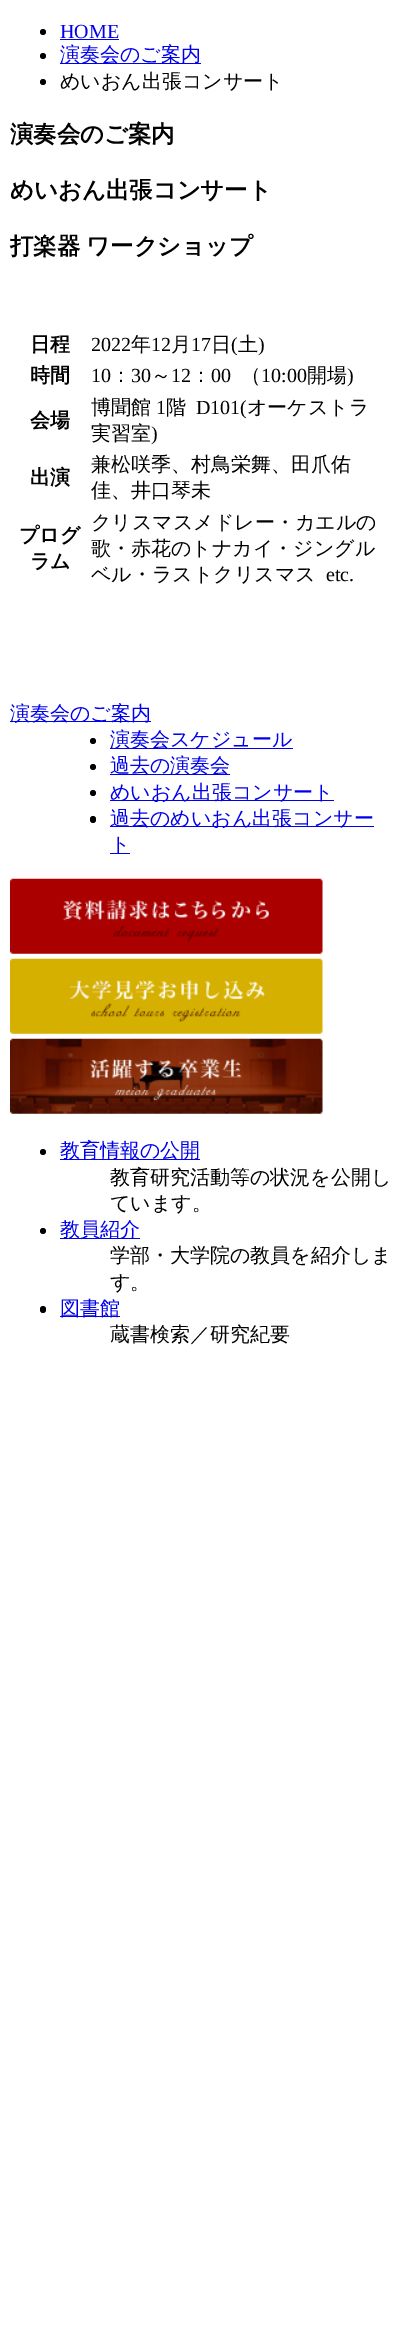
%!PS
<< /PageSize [402 2352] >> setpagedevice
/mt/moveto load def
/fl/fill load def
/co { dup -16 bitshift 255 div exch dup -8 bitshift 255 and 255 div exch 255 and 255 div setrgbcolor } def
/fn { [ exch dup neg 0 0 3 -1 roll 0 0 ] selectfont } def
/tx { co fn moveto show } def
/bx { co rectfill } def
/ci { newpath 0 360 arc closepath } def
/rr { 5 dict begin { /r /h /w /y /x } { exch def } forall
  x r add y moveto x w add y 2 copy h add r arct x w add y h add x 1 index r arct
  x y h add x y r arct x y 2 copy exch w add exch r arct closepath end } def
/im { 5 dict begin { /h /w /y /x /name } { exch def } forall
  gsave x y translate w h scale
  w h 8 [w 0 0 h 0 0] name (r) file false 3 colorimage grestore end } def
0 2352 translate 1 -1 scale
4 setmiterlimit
0 0 402 2352 16#FFFFFF bx
16#000000 co
43 32 3 ci fl
60 39 59 1 16#0000EE bx
16#000000 co
43 56 3 ci fl
60 63 141 1 16#0000EE bx
16#000000 co
43 82 3 ci fl
10 721 141 1 16#0000EE bx
16#000000 co
93 741 3 ci fl
110 748 183 1 16#0000EE bx
16#000000 co
93 767 3 ci fl
110 774 120 1 16#0000EE bx
16#000000 co
93 793 3 ci fl
110 800 224 1 16#0000EE bx
16#000000 co
90 816 6 7 3 rr fl
110 826 264 1 16#0000EE bx
110 853 20 1 16#0000EE bx
(media/1.raw) 10 878 313 76 im
(media/2.raw) 10 958 313 76 im
(media/3.raw) 10 1038 313 76 im
16#000000 co
43 1152 3 ci fl
60 1159 140 1 16#0000EE bx
16#000000 co
43 1231 3 ci fl
60 1238 80 1 16#0000EE bx
16#000000 co
40 1306 6 7 3 rr fl
60 1316 60 1 16#0000EE bx
(HOME) 60 38 /LiberationSerif-Regular 20 16#0000EE tx
(演奏会のご案内) 60 61 /WenQuanYiZenHei-Medium 20 16#0000EE tx
(めいおん出張コンサート) 60 88 /WenQuanYiZenHei-Medium 20 16#000000 tx
(演奏会のご案内) 10 142 /WenQuanYiZenHei-Bold 23.4 16#000000 tx
(めいおん出張コンサート) 10 198 /WenQuanYiZenHei-Bold 23.4 16#000000 tx
10 254 mt -1 0 32 (打楽器 ワークショップ) widthshow
(日程) 30 351 /WenQuanYiZenHei-Bold 20 16#000000 tx
(2022) 91 351 /LiberationSerif-Regular 20 16#000000 tx
(年) 131 351 /WenQuanYiZenHei-Medium 20 16#000000 tx
(12) 151 351 /LiberationSerif-Regular 20 16#000000 tx
(月) 171 351 /WenQuanYiZenHei-Medium 20 16#000000 tx
(17) 191 351 /LiberationSerif-Regular 20 16#000000 tx
(日) 211 351 /WenQuanYiZenHei-Medium 20 16#000000 tx
(\() 231 351 /LiberationSerif-Regular 20 16#000000 tx
(土) 238 351 /WenQuanYiZenHei-Medium 20 16#000000 tx
(\)) 258 351 /LiberationSerif-Regular 20 16#000000 tx
(時間) 30 382 /WenQuanYiZenHei-Bold 20 16#000000 tx
(10) 91 382 /LiberationSerif-Regular 20 16#000000 tx
(：) 111 382 /WenQuanYiZenHei-Medium 20 16#000000 tx
(30) 131 382 /LiberationSerif-Regular 20 16#000000 tx
(～) 151 382 /WenQuanYiZenHei-Medium 20 16#000000 tx
(12) 171 382 /LiberationSerif-Regular 20 16#000000 tx
(：) 191 382 /WenQuanYiZenHei-Medium 20 16#000000 tx
(00) 211 382 /LiberationSerif-Regular 20 16#000000 tx
(（) 241 382 /WenQuanYiZenHei-Medium 20 16#000000 tx
(10:00) 261 382 /LiberationSerif-Regular 20 16#000000 tx
(開場) 307 382 /WenQuanYiZenHei-Medium 20 16#000000 tx
(\)) 347 382 /LiberationSerif-Regular 20 16#000000 tx
(会場) 30 427 /WenQuanYiZenHei-Bold 20 16#000000 tx
(博聞館) 91 414 /WenQuanYiZenHei-Medium 20 16#000000 tx
(1) 156 414 /LiberationSerif-Regular 20 16#000000 tx
(階) 166 414 /WenQuanYiZenHei-Medium 20 16#000000 tx
(D101\() 196 414 /LiberationSerif-Regular 20 16#000000 tx
(オーケストラ) 247 414 /WenQuanYiZenHei-Medium 20 16#000000 tx
(実習室) 91 440 /WenQuanYiZenHei-Medium 20 16#000000 tx
(\)) 151 440 /LiberationSerif-Regular 20 16#000000 tx
(出演) 30 484 /WenQuanYiZenHei-Bold 20 16#000000 tx
(兼松咲季、村鳥栄舞、田爪佑) 91 471 /WenQuanYiZenHei-Medium 20 16#000000 tx
(佳、井口琴未) 91 497 /WenQuanYiZenHei-Medium 20 16#000000 tx
(プログ) 19 542 /WenQuanYiZenHei-Bold 20 16#000000 tx
(ラム) 30 568 /WenQuanYiZenHei-Bold 20 16#000000 tx
(クリスマスメドレー・カエルの) 91 529 /WenQuanYiZenHei-Medium 20 16#000000 tx
(歌・赤花のトナカイ・ジングル) 91 555 /WenQuanYiZenHei-Medium 20 16#000000 tx
(ベル・ラストクリスマス) 91 581 /WenQuanYiZenHei-Medium 20 16#000000 tx
(etc.) 326 581 /LiberationSerif-Regular 20 16#000000 tx
(演奏会のご案内) 10 720 /WenQuanYiZenHei-Medium 20 16#0000EE tx
(演奏会スケジュール) 110 746 /WenQuanYiZenHei-Medium 20 16#0000EE tx
(過去の演奏会) 110 772 /WenQuanYiZenHei-Medium 20 16#0000EE tx
(めいおん出張コンサート) 110 799 /WenQuanYiZenHei-Medium 20 16#0000EE tx
(過去のめいおん出張コンサー) 110 825 /WenQuanYiZenHei-Medium 20 16#0000EE tx
(ト) 110 851 /WenQuanYiZenHei-Medium 20 16#0000EE tx
(教育情報の公開) 60 1157 /WenQuanYiZenHei-Medium 20 16#0000EE tx
(教育研究活動等の状況を公開し) 110 1184 /WenQuanYiZenHei-Medium 20 16#000000 tx
(ています。) 110 1210 /WenQuanYiZenHei-Medium 20 16#000000 tx
(教員紹介) 60 1236 /WenQuanYiZenHei-Medium 20 16#0000EE tx
(学部・大学院の教員を紹介しま) 110 1262 /WenQuanYiZenHei-Medium 20 16#000000 tx
(す。) 110 1289 /WenQuanYiZenHei-Medium 20 16#000000 tx
(図書館) 60 1315 /WenQuanYiZenHei-Medium 20 16#0000EE tx
(蔵書検索／研究紀要) 110 1341 /WenQuanYiZenHei-Medium 20 16#000000 tx
showpage
